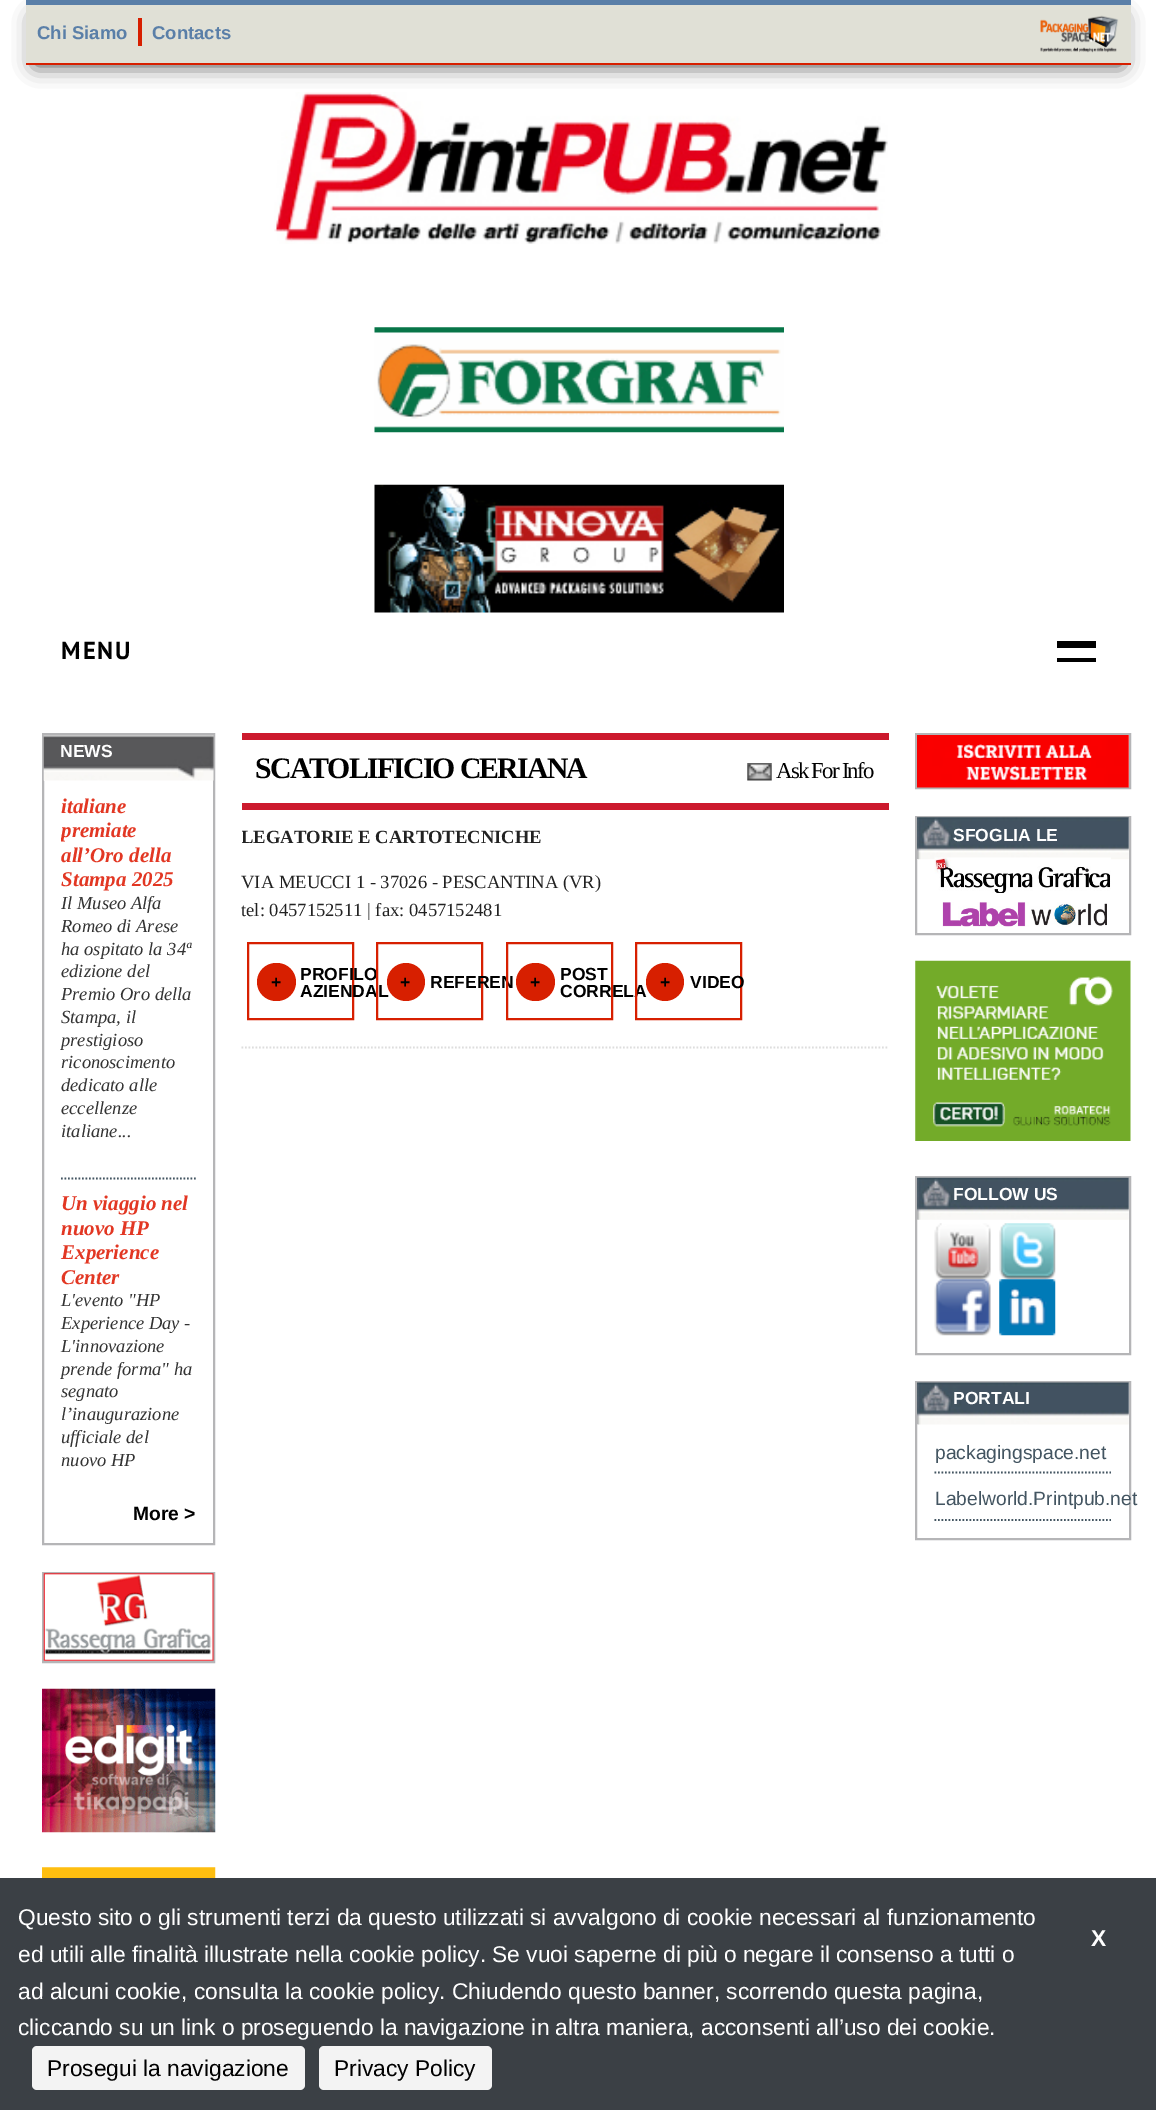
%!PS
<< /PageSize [1156 2110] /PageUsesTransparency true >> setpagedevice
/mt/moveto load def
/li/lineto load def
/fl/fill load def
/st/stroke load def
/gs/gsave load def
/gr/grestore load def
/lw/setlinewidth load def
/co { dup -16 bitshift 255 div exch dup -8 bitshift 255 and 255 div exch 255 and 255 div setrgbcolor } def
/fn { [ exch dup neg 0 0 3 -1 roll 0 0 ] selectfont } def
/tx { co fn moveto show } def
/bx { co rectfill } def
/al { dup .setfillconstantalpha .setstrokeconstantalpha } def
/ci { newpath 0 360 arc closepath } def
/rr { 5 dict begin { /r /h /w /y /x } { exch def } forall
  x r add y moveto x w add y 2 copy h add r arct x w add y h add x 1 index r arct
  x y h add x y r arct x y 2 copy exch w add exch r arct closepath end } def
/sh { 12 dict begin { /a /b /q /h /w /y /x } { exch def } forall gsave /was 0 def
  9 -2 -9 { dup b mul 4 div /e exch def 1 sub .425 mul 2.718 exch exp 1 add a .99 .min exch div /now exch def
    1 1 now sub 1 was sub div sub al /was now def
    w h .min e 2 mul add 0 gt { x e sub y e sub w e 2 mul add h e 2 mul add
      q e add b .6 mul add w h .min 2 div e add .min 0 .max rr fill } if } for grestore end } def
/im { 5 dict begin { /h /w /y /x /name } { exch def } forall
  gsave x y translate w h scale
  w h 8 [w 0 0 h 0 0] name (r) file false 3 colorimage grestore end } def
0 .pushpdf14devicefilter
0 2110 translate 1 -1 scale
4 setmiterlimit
0 0 1156 2110 16#FFFFFF bx
16#000000 co
35 18 1087 47 0 10.5 .75 sh
26 5 1105 58 16#E0E0D6 bx
26 0 1105 5 16#5A7FA8 bx
26 63 1105 2 16#D71F00 bx
138 18 4 28 16#D71F00 bx
(media/1.raw) 1040 15 79 38 im
(media/2.raw) 274 92 614 152 im
(media/3.raw) 374 327 410 106 im
(media/4.raw) 374 484 410 129 im
1057 641 39 7 16#000000 bx
1057 658 39 4 16#000000 bx
16#B5B5B7 co
2 lw
43 734 171 810 rectstroke
(media/5.raw) 43 735 171 46 im
16#435561 co
1.8 lw
[1.75 1.75] 0 setdash
61 1178.5 mt 196 1178.5 li st
16#B5B5B7 co
2 lw
[] 0 setdash
43 1573 171 89 rectstroke
(media/6.raw) 43 1573 171 88 im
(media/7.raw) 42 1688 174 145 im
(media/8.raw) 42 1867 174 11 im
16#DDDDDD co
1.8 lw
[1.75 1.75] 0 setdash
241.5 1047.5 mt 889 1047.5 li st
242 733 647 7 16#CC1A2D bx
242 803 647 7 16#CC1A2D bx
(media/9.raw) 747 763 25 18 im
16#D71F00 co
2 lw
[] 0 setdash
248 943 105 76 rectstroke
257 963 39 38 19 rr fl
16#B5B5B7 co
916 734 214 54 rectstroke
(media/10.raw) 917 735 212 53 im
916 817 214 117 rectstroke
(media/11.raw) 917 817 212 43 im
(media/12.raw) 934 857 177 36 im
(media/13.raw) 942 902 165 25 im
(media/14.raw) 915 960 216 181 im
916 1177 214 177 rectstroke
(media/15.raw) 917 1177 212 43 im
(media/16.raw) 934 1223 57 57 im
(media/17.raw) 999 1223 57 57 im
(media/18.raw) 934 1279 57 57 im
(media/19.raw) 999 1279 57 57 im
916 1382 214 157 rectstroke
(media/20.raw) 917 1382 212 43 im
16#435561 co
1.8 lw
[1.75 1.75] 0 setdash
934.5 1472.5 mt 1111 1472.5 li st
934.5 1520 mt 1111 1520 li st
0 1878 1156 232 16#3B4045 bx
16#F3F3F3 co
32 2046 273 44 5 rr fl
319 2046 173 44 5 rr fl
(Chi Siamo) 37 39 /LiberationSans-Bold 18.5 16#5A7FA8 tx
(Contacts) 152 39 /LiberationSans-Bold 18.5 16#5A7FA8 tx
/PTSans-Bold 24.5 fn
16#000000 co
61 659 mt 2 0 (MENU) ashow
(NEWS) 60 757 /LiberationSans-Bold 17.5 16#FFFFFF tx
(italiane) 61 813 /LiberationSerif-BoldItalic 21 16#E23723 tx
gs
61 781 135 700 rectclip
(premiate) 61 837 /LiberationSerif-BoldItalic 21 16#E23723 tx
gr
(all’Oro della) 61 862 /LiberationSerif-BoldItalic 21 16#E23723 tx
(Stampa 2025) 61 886 /LiberationSerif-BoldItalic 21 16#E23723 tx
(Il Museo Alfa) 61 909 /LiberationSerif-Italic 18.5 16#333333 tx
(Romeo di Arese) 61 932 /LiberationSerif-Italic 18.5 16#333333 tx
(ha ospitato la 34ª) 61 955 /LiberationSerif-Italic 18.5 16#333333 tx
(edizione del) 61 977 /LiberationSerif-Italic 18.5 16#333333 tx
(Premio Oro della) 61 1000 /LiberationSerif-Italic 18.5 16#333333 tx
(Stampa, il) 61 1023 /LiberationSerif-Italic 18.5 16#333333 tx
(prestigioso) 61 1046 /LiberationSerif-Italic 18.5 16#333333 tx
(riconoscimento) 61 1068 /LiberationSerif-Italic 18.5 16#333333 tx
(dedicato alle) 61 1091 /LiberationSerif-Italic 18.5 16#333333 tx
(eccellenze) 61 1114 /LiberationSerif-Italic 18.5 16#333333 tx
(italiane...) 61 1137 /LiberationSerif-Italic 18.5 16#333333 tx
(Un viaggio nel) 61 1210 /LiberationSerif-BoldItalic 21 16#E23723 tx
(nuovo HP) 61 1235 /LiberationSerif-BoldItalic 21 16#E23723 tx
(Experience) 61 1259 /LiberationSerif-BoldItalic 21 16#E23723 tx
(Center) 61 1284 /LiberationSerif-BoldItalic 21 16#E23723 tx
(L'evento "HP) 61 1306 /LiberationSerif-Italic 18.5 16#333333 tx
(Experience Day -) 61 1329 /LiberationSerif-Italic 18.5 16#333333 tx
(L'innovazione) 61 1352 /LiberationSerif-Italic 18.5 16#333333 tx
(prende forma" ha) 61 1375 /LiberationSerif-Italic 18.5 16#333333 tx
(segnato) 61 1397 /LiberationSerif-Italic 18.5 16#333333 tx
(l’inaugurazione) 61 1420 /LiberationSerif-Italic 18.5 16#333333 tx
(ufficiale del) 61 1443 /LiberationSerif-Italic 18.5 16#333333 tx
(nuovo HP) 61 1466 /LiberationSerif-Italic 18.5 16#333333 tx
(More >) 133 1520 /LiberationSans-Bold 19.25 16#000000 tx
/LiberationSerif-Bold 29.75 fn
255 778 mt -1.75 0 (SCATOLIFICIO CERIANA) ashow
/LiberationSerif-Regular 22.75 fn
776 778 mt -1.75 0 (Ask For Info) ashow
gs
242 824 647 100 rectclip
(LEGATORIE E CARTOTECNICHE) 241 843 /LiberationSerif-Bold 18.6 16#222222 tx
gr
(VIA MEUCCI 1 - 37026 - PESCANTINA \(VR\)) 241 888 /LiberationSerif-Regular 18.6 16#222222 tx
(tel: 0457152511 | fax: 0457152481) 241 916 /LiberationSerif-Regular 18.6 16#222222 tx
(+) 271 988 /LiberationSans-Bold 17.5 16#000000 tx
(PROFILO) 300 980 /LiberationSans-Bold 17.5 16#000000 tx
(AZIENDAL) 300 997 /LiberationSans-Bold 17.5 16#000000 tx
16#D71F00 co
2 lw
[] 0 setdash
377 943 105 76 rectstroke
406 982 19 ci fl
(+) 400 988 /LiberationSans-Bold 17.5 16#000000 tx
(REFEREN) 430 988 /LiberationSans-Bold 17.5 16#000000 tx
16#D71F00 co
507 943 105 76 rectstroke
516 963 39 38 19 rr fl
(+) 530 988 /LiberationSans-Bold 17.5 16#000000 tx
(POST) 560 980 /LiberationSans-Bold 17.5 16#000000 tx
(CORRELA) 560 997 /LiberationSans-Bold 17.5 16#000000 tx
16#D71F00 co
636 943 105 76 rectstroke
665 982 19 ci fl
(+) 660 988 /LiberationSans-Bold 17.5 16#000000 tx
(VIDEO) 690 988 /LiberationSans-Bold 17.5 16#000000 tx
(SFOGLIA LE) 953 841 /LiberationSans-Bold 17.5 16#FFFFFF tx
(FOLLOW US) 953 1200 /LiberationSans-Bold 17.5 16#FFFFFF tx
(PORTALI) 953 1404 /LiberationSans-Bold 17.5 16#FFFFFF tx
(packagingspace.net) 935 1459 /LiberationSans-Regular 19.25 16#435561 tx
(Labelworld.Printpub.net) 935 1505 /LiberationSans-Regular 19.25 16#435561 tx
(Questo sito o gli strumenti terzi da questo utilizzati si avvalgono di cookie necessari al funzionamento) 18 1925 /LiberationSans-Regular 22.75 16#FFFFFF tx
(X) 1091 1946 /LiberationSans-Bold 22.75 16#FFFFFF tx
(ed utili alle finalità illustrate nella cookie policy. Se vuoi saperne di più o negare il consenso a tutti o) 18 1962 /LiberationSans-Regular 22.75 16#FFFFFF tx
(ad alcuni cookie, consulta la cookie policy. Chiudendo questo banner, scorrendo questa pagina,) 18 1999 /LiberationSans-Regular 22.75 16#FFFFFF tx
(cliccando su un link o proseguendo la navigazione in altra maniera, acconsenti all’uso dei cookie.) 18 2035 /LiberationSans-Regular 22.75 16#FFFFFF tx
(Prosegui la navigazione) 47 2076 /LiberationSans-Regular 22.75 16#000000 tx
(Privacy Policy) 334 2076 /LiberationSans-Regular 22.75 16#000000 tx
.poppdf14devicefilter showpage
